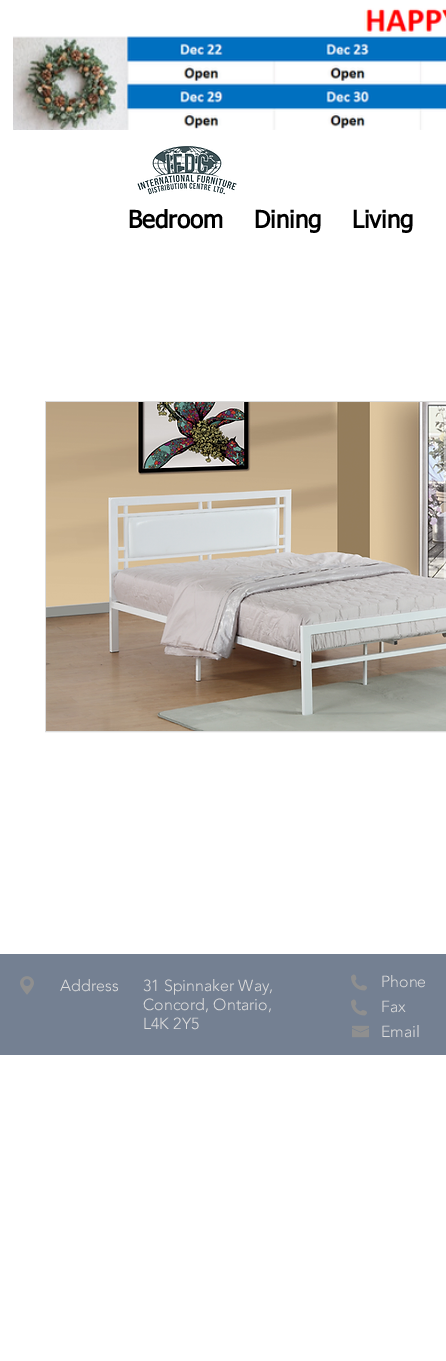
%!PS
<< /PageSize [446 1361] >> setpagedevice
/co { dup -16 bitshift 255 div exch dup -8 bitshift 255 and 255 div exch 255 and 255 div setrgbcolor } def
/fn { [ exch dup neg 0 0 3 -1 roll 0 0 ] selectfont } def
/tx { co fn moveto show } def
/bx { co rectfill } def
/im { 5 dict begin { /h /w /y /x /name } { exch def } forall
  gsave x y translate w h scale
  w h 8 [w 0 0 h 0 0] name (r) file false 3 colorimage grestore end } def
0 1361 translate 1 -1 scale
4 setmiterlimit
0 0 446 1361 16#FFFFFF bx
(media/1.raw) 13 8 433 122 im
(media/2.raw) 137 146 100 49 im
16#DBDBDB co
45.5 401.5 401 330 rectstroke
(media/3.raw) 46 402 400 329 im
0 954 446 101 16#748092 bx
(media/4.raw) 20 976 14 19 im
(media/5.raw) 351 974 16 17 im
(media/5.raw) 351 999 16 17 im
(media/6.raw) 352 1025 17 13 im
(Bedroom) 128 228 /tahoma-Bold 24 16#000000 tx
(Dining) 254 228 /tahoma-Bold 24 16#000000 tx
(Living) 352 228 /tahoma-Bold 24 16#000000 tx
(Address) 60 991 /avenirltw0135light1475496-Light 16 16#DBDBDB tx
(31 Spinnaker Way,) 143 991 /avenirltw0135light1475496-Light 16 16#DBDBDB tx
(Concord, Ontario,) 143 1010 /avenirltw0135light1475496-Light 16 16#DBDBDB tx
(L4K 2Y5) 143 1029 /avenirltw0135light1475496-Light 16 16#DBDBDB tx
(Phone) 381 987 /avenirltw0135light1475496-Light 16 16#DBDBDB tx
(Fax) 381 1012 /avenirltw0135light1475496-Light 16 16#DBDBDB tx
(Email) 381 1037 /avenirltw0135light1475496-Light 16 16#DBDBDB tx
showpage
